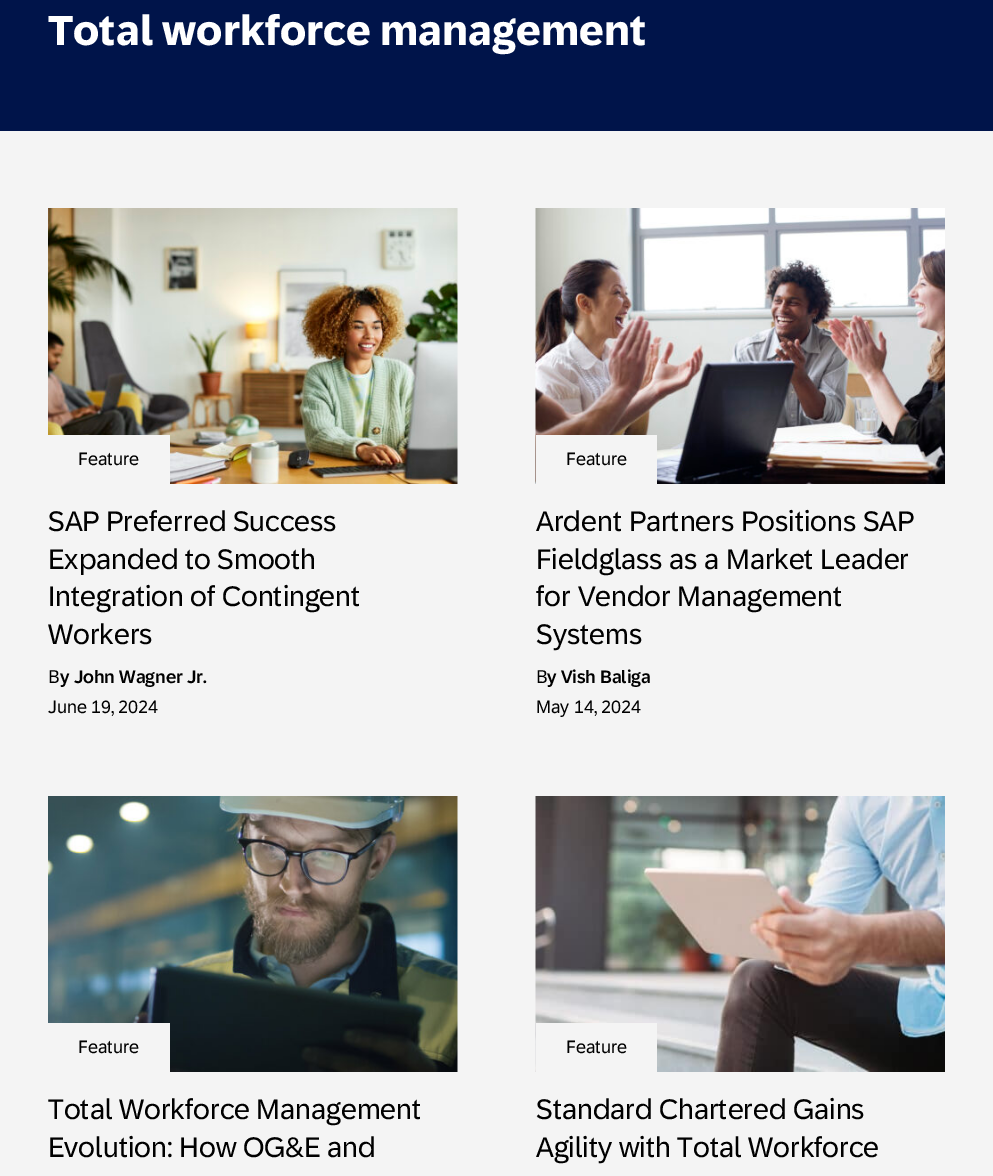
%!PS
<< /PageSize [993 1176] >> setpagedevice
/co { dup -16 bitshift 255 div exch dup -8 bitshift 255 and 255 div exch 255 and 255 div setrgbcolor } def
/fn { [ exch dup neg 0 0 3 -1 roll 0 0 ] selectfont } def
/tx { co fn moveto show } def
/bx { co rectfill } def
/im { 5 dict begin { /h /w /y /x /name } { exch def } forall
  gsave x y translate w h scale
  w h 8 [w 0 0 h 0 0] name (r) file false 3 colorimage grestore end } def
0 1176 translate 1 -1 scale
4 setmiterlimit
0 0 993 1176 16#F4F4F4 bx
0 0 993 131 16#00144A bx
(media/1.raw) 48 208 410 276 im
48 435 122 49 16#F4F4F4 bx
(media/2.raw) 535 208 410 276 im
536 435 121 49 16#F4F4F4 bx
(media/3.raw) 48 796 410 276 im
48 1023 122 49 16#F4F4F4 bx
(media/4.raw) 535 796 410 276 im
536 1023 121 49 16#F4F4F4 bx
(Total workforce management) 48 45 /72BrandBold-Bold 42 16#FFFFFF tx
(Feature) 78 465 /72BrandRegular-Regular 18 16#000000 tx
(SAP Preferred Success) 48 531 /72BrandRegular-Regular 28.5 16#000000 tx
(Expanded to Smooth) 48 569 /72BrandRegular-Regular 28.5 16#000000 tx
(Integration of Contingent) 48 606 /72BrandRegular-Regular 28.5 16#000000 tx
(Workers) 48 644 /72BrandRegular-Regular 28.5 16#000000 tx
(B) 48 683 /NotoSans-Regular 18 16#000000 tx
(y John Wagner Jr.) 60 683 /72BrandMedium-Medium 18 16#000000 tx
(June 19, 2024) 48 713 /72BrandRegular-Regular 18 16#000000 tx
(Feature) 566 465 /72BrandRegular-Regular 18 16#000000 tx
(Ardent Partners Positions SAP) 536 531 /72BrandRegular-Regular 28.5 16#000000 tx
(Fieldglass as a Market Leader) 536 569 /72BrandRegular-Regular 28.5 16#000000 tx
(for Vendor Management) 536 606 /72BrandRegular-Regular 28.5 16#000000 tx
(Systems) 536 644 /72BrandRegular-Regular 28.5 16#000000 tx
(B) 536 683 /NotoSans-Regular 18 16#000000 tx
(y Vish Baliga) 547 683 /72BrandMedium-Medium 18 16#000000 tx
(May 14, 2024) 536 713 /72BrandRegular-Regular 18 16#000000 tx
(Feature) 78 1053 /72BrandRegular-Regular 18 16#000000 tx
(Total Workforce Management) 48 1119 /72BrandRegular-Regular 28.5 16#000000 tx
(Evolution: How OG&E and) 48 1157 /72BrandRegular-Regular 28.5 16#000000 tx
(Feature) 566 1053 /72BrandRegular-Regular 18 16#000000 tx
(Standard Chartered Gains) 536 1119 /72BrandRegular-Regular 28.5 16#000000 tx
(Agility with Total Workforce) 536 1157 /72BrandRegular-Regular 28.5 16#000000 tx
showpage
